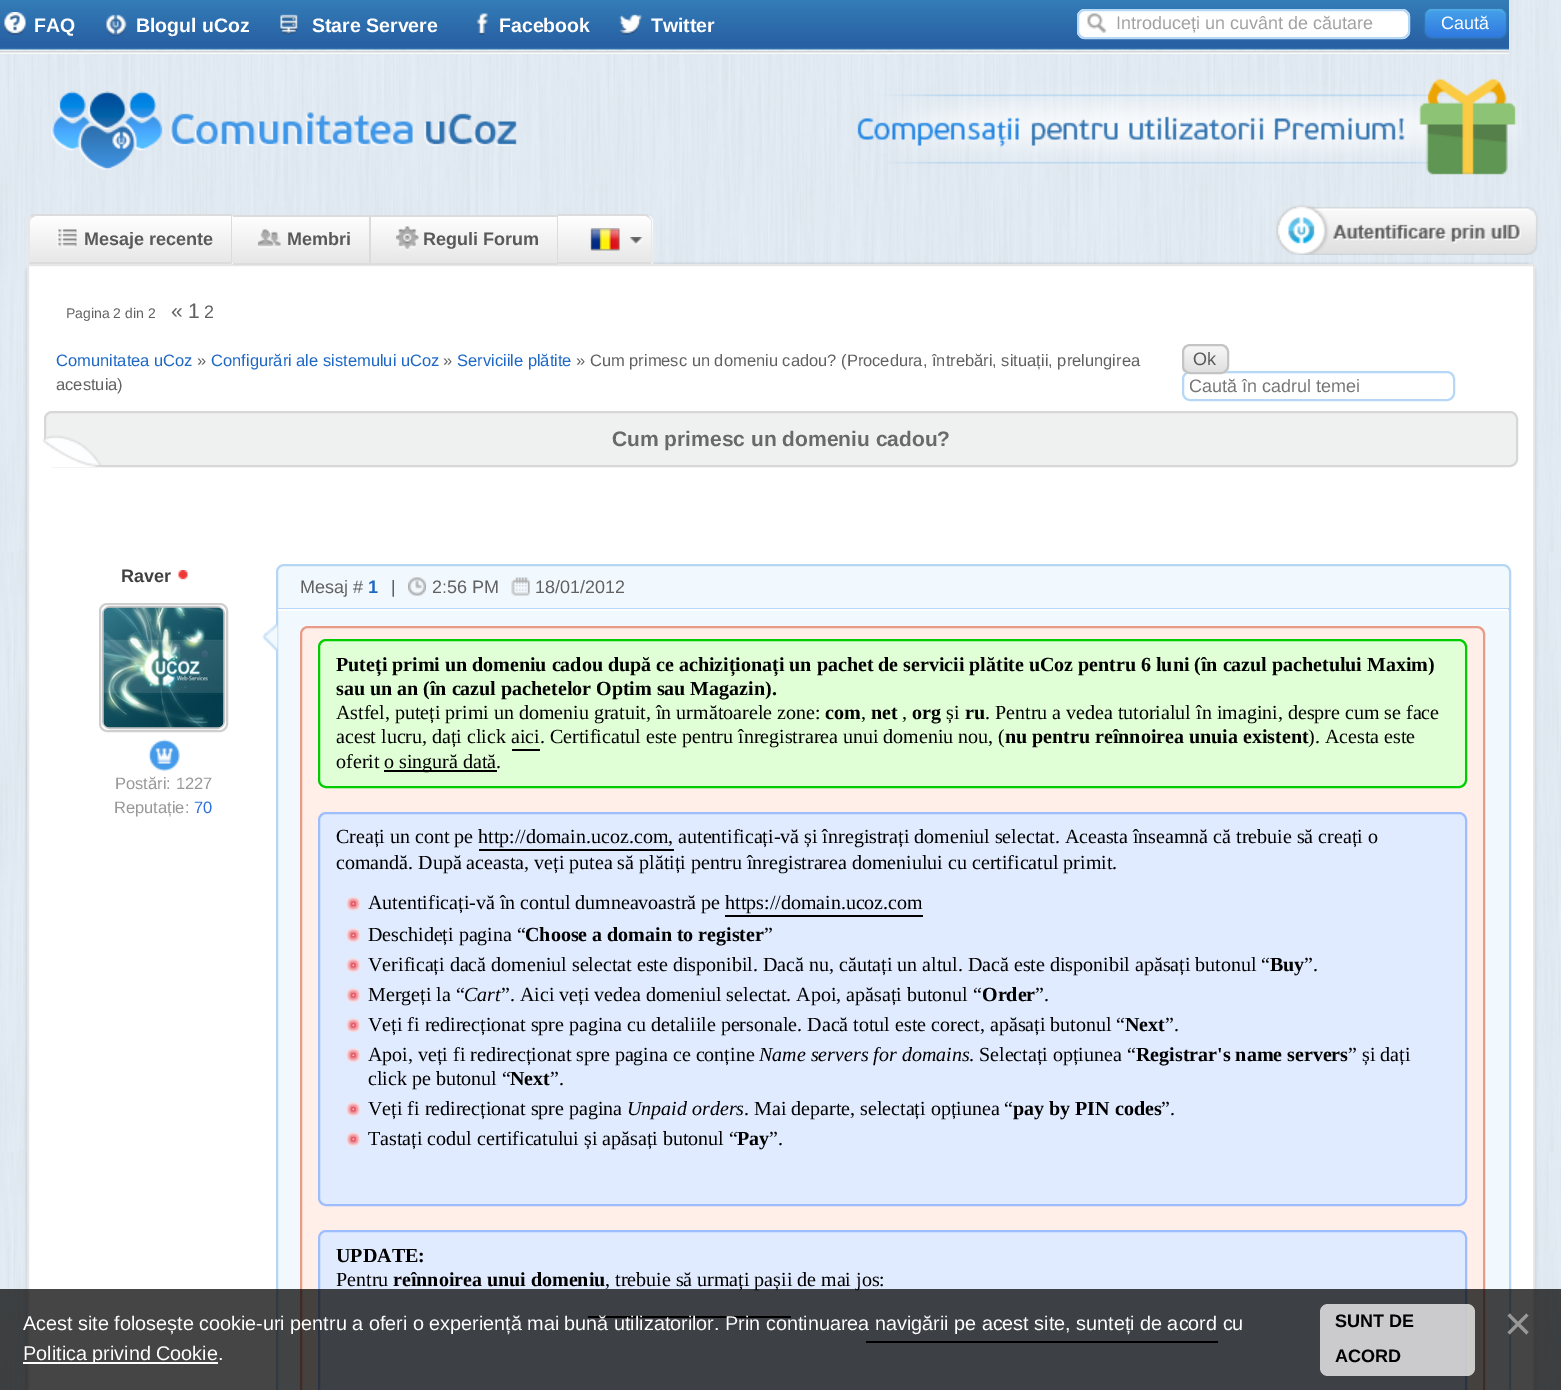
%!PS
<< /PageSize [1561 1390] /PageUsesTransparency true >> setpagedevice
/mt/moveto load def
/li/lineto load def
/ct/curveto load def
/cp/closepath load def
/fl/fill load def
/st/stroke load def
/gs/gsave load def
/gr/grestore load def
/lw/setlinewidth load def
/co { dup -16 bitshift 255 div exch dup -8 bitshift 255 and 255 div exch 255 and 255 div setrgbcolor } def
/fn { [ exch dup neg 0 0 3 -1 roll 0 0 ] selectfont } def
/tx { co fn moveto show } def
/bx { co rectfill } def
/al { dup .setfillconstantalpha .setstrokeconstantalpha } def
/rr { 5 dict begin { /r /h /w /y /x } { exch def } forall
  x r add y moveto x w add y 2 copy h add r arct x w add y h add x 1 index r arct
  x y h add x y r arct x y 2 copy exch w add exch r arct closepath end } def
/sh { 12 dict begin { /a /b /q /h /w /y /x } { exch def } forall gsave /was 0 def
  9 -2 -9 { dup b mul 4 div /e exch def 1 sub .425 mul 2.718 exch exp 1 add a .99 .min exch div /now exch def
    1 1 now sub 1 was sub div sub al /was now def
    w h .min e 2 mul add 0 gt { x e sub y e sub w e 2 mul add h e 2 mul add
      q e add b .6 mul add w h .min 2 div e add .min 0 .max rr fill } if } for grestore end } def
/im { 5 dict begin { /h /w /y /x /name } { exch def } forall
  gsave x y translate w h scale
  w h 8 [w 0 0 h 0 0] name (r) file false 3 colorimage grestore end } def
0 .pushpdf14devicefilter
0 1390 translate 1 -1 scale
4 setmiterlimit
0 0 1561 1390 16#FFFFFF bx
(media/1.raw) 0 0 1561 1390 im
(media/2.raw) 0 0 1509 54 im
(media/3.raw) 4 12 22 23 im
(media/4.raw) 106 14 21 23 im
(media/5.raw) 280 14 18 21 im
(media/6.raw) 476 13 12 22 im
(media/7.raw) 619 14 24 21 im
1077 9 333 30 8 rr fl
(media/8.raw) 1087 13 20 20 im
16#B6D8F6 co
2 lw
1078 10 331 28 7 rr st
(media/9.raw) 1423 8 85 31 im
(media/10.raw) 51 91 466 79 im
gs
37 215 mt 233 215 li 233 264 li 29 264 li 29 223 li 29 218.5 32.5 215 37 215 ct cp clip newpath
gs 231 215 mt 233 215 li 233 216 li 231 216 li cp clip newpath
<< /ShadingType 2 /ColorSpace /DeviceRGB /Coords [131 169 131 216] /Extend [true true] /Function << /FunctionType 2 /Domain [0 1] /C0 [1 1 1] /C1 [.906 .906 .906] /N 1 >> >> shfill gr
gr
16#000000 co
27 264 1508 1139 8 1.5 .18 sh
gs
37 215 mt 233 215 li 233 264 li 29 264 li 29 223 li 29 218.5 32.5 215 37 215 ct cp clip newpath
gs 29 216 mt 233 216 li 233 263 li 29 263 li cp clip newpath
<< /ShadingType 2 /ColorSpace /DeviceRGB /Coords [131 216 131 263] /Extend [true true] /Function << /FunctionType 2 /Domain [0 1] /C0 [1 1 1] /C1 [.906 .906 .906] /N 1 >> >> shfill gr
gr
gs 231 263 mt 233 263 li 233 264 li 231 264 li cp clip newpath
<< /ShadingType 2 /ColorSpace /DeviceRGB /Coords [131 263 131 309] /Extend [true true] /Function << /FunctionType 2 /Domain [0 1] /C0 [1 1 1] /C1 [.906 .906 .906] /N 1 >> >> shfill gr
16#DCDCDC co
36 216 mt 34 216 33 217 32 218 ct 30 216 li 33 214 li 232 214 li 231 216 li cp fl
232 215 mt 232 264 li 230 262 li 231 262 li 231 216 li cp fl
28 264 mt 232 264 li 230 262 li 30 262 li cp fl
16#E7E7E7 co
28 264 mt 28 219 li 30 216 li 32 218 li 31 219 30 220 30 222 ct 30 262 li cp fl
(media/11.raw) 57 229 20 19 im
gs 233 217 mt 369 217 li 369 263 li 233 263 li cp clip newpath
<< /ShadingType 2 /ColorSpace /DeviceRGB /Coords [301 216 301 263] /Extend [true true] /Function << /FunctionType 2 /Domain [0 1] /C0 [1 1 1] /C1 [.906 .906 .906] /N 1 >> >> shfill gr
233 215 325 2 16#DCDCDC bx
369 215 2 49 16#DCDCDC bx
16#FFFFFF co
28 265 mt 1534 265 li 1534 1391 li 28 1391 li cp gs fl gr
16#E7E7E7 co
st
233 263 138 2 16#DCDCDC bx
(media/12.raw) 258 229 23 19 im
gs 371 217 mt 557 217 li 557 263 li 371 263 li cp clip newpath
<< /ShadingType 2 /ColorSpace /DeviceRGB /Coords [464 216 464 263] /Extend [true true] /Function << /FunctionType 2 /Domain [0 1] /C0 [1 1 1] /C1 [.906 .906 .906] /N 1 >> >> shfill gr
557 215 1 49 16#DCDCDC bx
371 263 187 2 16#DCDCDC bx
(media/13.raw) 396 226 23 25 im
gs
558 215 mt 645 215 li 649.5 215 653 218.5 653 223 ct 653 264 li 558 264 li cp clip newpath
gs 558 216 mt 653 216 li 653 263 li 558 263 li cp clip newpath
<< /ShadingType 2 /ColorSpace /DeviceRGB /Coords [605 216 605 263] /Extend [true true] /Function << /FunctionType 2 /Domain [0 1] /C0 [1 1 1] /C1 [.906 .906 .906] /N 1 >> >> shfill gr
gr
gs 651 263 mt 653 263 li 653 264 li 651 264 li cp clip newpath
<< /ShadingType 2 /ColorSpace /DeviceRGB /Coords [605 263 605 309] /Extend [true true] /Function << /FunctionType 2 /Domain [0 1] /C0 [1 1 1] /C1 [.906 .906 .906] /N 1 >> >> shfill gr
558 216 mt 646 216 li 649 218 li 650 217 li 647 214 li 558 214 li cp fl
16#E7E7E7 co
650 262 mt 651 262 li 651 222 li 651 220 650 219 649 218 ct 650 217 li 651 218 652 220 652 222 ct 652 264 li cp fl
16#DCDCDC co
558 262 mt 558 264 li 652 264 li 650 262 li cp fl
(media/14.raw) 590 228 30 23 im
(media/15.raw) 630 237 13 8 im
(media/16.raw) 857 78 664 97 im
(media/17.raw) 1276 205 262 50 im
16#B6D8F6 co
1183 372 271 28 7 rr st
gs
1182 344 47 30 8 rr clip newpath
gs 1182 345 mt 1229 345 li 1229 372 li 1182 372 li cp clip newpath
<< /ShadingType 2 /ColorSpace /DeviceRGB /Coords [1205 345 1205 372] /Extend [true true] /Function << /FunctionType 2 /Domain [0 1] /C0 [.973 .973 .973] /C1 [.878 .878 .878] /N 1 >> >> shfill gr
gr
16#C4C4C4 co
1183 345 45 28 7 rr st
16#EFF0F0 co
45 412 1472 54 7 rr gs fl gr
16#D7D7D7 co
st
(media/18.raw) 42 435 59 32 im
(media/19.raw) 178 570 10 10 im
16#CFCFCF co
100 604 127 127 7 rr st
16#C6C6C6 co
103 607 121 121 7 rr st
(media/20.raw) 103 607 121 121 im
(media/21.raw) 148 739 32 32 im
16#F1F8FE co
277 565 1233 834 7 rr gs fl gr
16#B5D7F4 co
st
278 608 1231 2 16#B6D8F6 bx
(media/22.raw) 408 577 18 19 im
(media/23.raw) 511 577 19 19 im
(media/24.raw) 262 624 16 27 im
278 609 1230 2 16#FFFFFF bx
16#FFEFE8 co
301 627 1183 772 7 rr gs fl gr
16#E89B88 co
st
16#E1FFD7 co
319 640 1147 147 7 rr gs fl gr
16#00CC00 co
st
512 749 28 2 16#000000 bx
384 770 113 2 16#000000 bx
16#E1EBFF co
319 813 1147 392 7 rr gs fl gr
16#9DBDFF co
st
479 849 195 2 16#000000 bx
(media/25.raw) 346 896 15 15 im
725 915 198 2 16#000000 bx
(media/26.raw) 346 928 15 15 im
(media/26.raw) 346 958 15 15 im
(media/26.raw) 346 988 15 15 im
(media/26.raw) 346 1018 15 15 im
(media/26.raw) 346 1048 15 15 im
(media/26.raw) 346 1102 15 15 im
(media/26.raw) 346 1132 15 15 im
16#E1EBFF co
319 1231 1147 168 7 rr gs fl gr
16#9DBDFF co
st
588 1316 203 2 16#000000 bx
866 1341 352 2 16#000000 bx
(FAQ) 34 32 /LiberationSans-Bold 19.5 16#FFFFFF tx
(Blogul uCoz) 136 32 /LiberationSans-Bold 19.5 16#FFFFFF tx
(Stare Servere) 312 32 /LiberationSans-Bold 19.5 16#FFFFFF tx
(Facebook) 499 32 /LiberationSans-Bold 19.5 16#FFFFFF tx
(Twitter) 651 32 /LiberationSans-Bold 19.5 16#FFFFFF tx
(Introduceți un cuvânt de căutare) 1116 29 /LiberationSans-Regular 18 16#A1A1A1 tx
(Caută) 1441 29 /LiberationSans-Regular 18 16#FFFFFF tx
(Mesaje recente) 84 245 /LiberationSans-Bold 18 16#595959 tx
(Membri) 287 245 /LiberationSans-Bold 18 16#595959 tx
(Reguli Forum) 423 245 /LiberationSans-Bold 18 16#595959 tx
(Pagina 2 din 2) 66 318 /LiberationSans-Regular 14 16#616161 tx
(«) 171 318 /LiberationSans-Regular 21 16#616161 tx
(1) 188 318 /LiberationSans-Regular 21 16#616161 tx
(2) 204 318 /LiberationSans-Regular 18 16#616161 tx
(Comunitatea uCoz) 56 366 /LiberationSans-Regular 16.5 16#1E68C4 tx
(») 197 366 /LiberationSans-Regular 16.5 16#616161 tx
(Configurări ale sistemului uCoz) 211 366 /LiberationSans-Regular 16.5 16#1E68C4 tx
(») 443 366 /LiberationSans-Regular 16.5 16#616161 tx
(Serviciile plătite) 457 366 /LiberationSans-Regular 16.5 16#1E68C4 tx
(» Cum primesc un domeniu cadou? \(Procedura, întrebări, situații, prelungirea) 576 366 /LiberationSans-Regular 16.5 16#616161 tx
(acestuia\)) 56 390 /LiberationSans-Regular 16.5 16#616161 tx
(Ok) 1193 365 /LiberationSans-Regular 18 16#595959 tx
gs
1190 375 258 21 rectclip
(Caută în cadrul temei) 1189 392 /LiberationSans-Regular 18 16#757575 tx
gr
(Cum primesc un domeniu cadou?) 612 446 /LiberationSans-Bold 21 16#696969 tx
(Raver) 121 582 /LiberationSans-Bold 18 16#404040 tx
(Postări: 1227) 115 789 /LiberationSans-Regular 16.5 16#989898 tx
(Reputație:) 114 813 /LiberationSans-Regular 16.5 16#989898 tx
(70) 194 813 /LiberationSans-Regular 16.5 16#2D71DE tx
(Mesaj #) 300 593 /LiberationSans-Regular 18 16#616161 tx
(1) 368 593 /LiberationSans-Bold 18 16#1E68C4 tx
(|) 391 593 /LiberationSans-Regular 18 16#616161 tx
(2:56 PM) 432 593 /LiberationSans-Regular 18 16#616161 tx
(18/01/2012) 535 593 /LiberationSans-Regular 18 16#616161 tx
(Puteți primi un domeniu cadou după ce achiziționați un pachet de servicii plătite uCoz pentru 6 luni \(în cazul pachetului Maxim\)) 336 671 /LiberationSerif-Bold 20 16#000000 tx
(sau un an \(în cazul pachetelor Optim sau Magazin\).) 336 695 /LiberationSerif-Bold 20 16#000000 tx
(Astfel, puteți primi un domeniu gratuit, în următoarele zone:) 336 719 /LiberationSerif-Regular 20 16#000000 tx
(com) 825 719 /LiberationSerif-Bold 20 16#000000 tx
(,) 861 719 /LiberationSerif-Regular 20 16#000000 tx
(net) 871 719 /LiberationSerif-Bold 20 16#000000 tx
(,) 902 719 /LiberationSerif-Regular 20 16#000000 tx
(org) 912 719 /LiberationSerif-Bold 20 16#000000 tx
(și) 946 719 /LiberationSerif-Regular 20 16#000000 tx
(ru) 965 719 /LiberationSerif-Bold 20 16#000000 tx
(. Pentru a vedea tutorialul în imagini, despre cum se face) 985 719 /LiberationSerif-Regular 20 16#000000 tx
(acest lucru, dați click aici. Certificatul este pentru înregistrarea unui domeniu nou, \() 336 743 /LiberationSerif-Regular 20 16#000000 tx
(nu pentru reînnoirea unuia existent) 1005 743 /LiberationSerif-Bold 20 16#000000 tx
(\). Acesta este) 1308 743 /LiberationSerif-Regular 20 16#000000 tx
(oferit) 336 768 /LiberationSerif-Regular 20 16#000000 tx
(o singură dată.) 384 768 /LiberationSerif-Regular 20 16#000000 tx
(Creați un cont pe http://domain.ucoz.com, autentificați-vă și înregistrați domeniul selectat. Aceasta înseamnă că trebuie să creați o) 336 843 /LiberationSerif-Regular 20 16#000000 tx
(comandă. După aceasta, veți putea să plătiți pentru înregistrarea domeniului cu certificatul primit.) 336 869 /LiberationSerif-Regular 20 16#000000 tx
(Autentificați-vă în contul dumneavoastră pe https://domain.ucoz.com) 368 909 /LiberationSerif-Regular 20 16#000000 tx
(Deschideți pagina “) 368 941 /LiberationSerif-Regular 20 16#000000 tx
(Choose a domain to register) 525 941 /LiberationSerif-Bold 20 16#000000 tx
(”) 764 941 /LiberationSerif-Regular 20 16#000000 tx
(Verificați dacă domeniul selectat este disponibil. Dacă nu, căutați un altul. Dacă este disponibil apăsați butonul “) 368 971 /LiberationSerif-Regular 20 16#000000 tx
(Buy) 1270 971 /LiberationSerif-Bold 20 16#000000 tx
(”.) 1304 971 /LiberationSerif-Regular 20 16#000000 tx
(Mergeți la “) 368 1001 /LiberationSerif-Regular 20 16#000000 tx
(Cart) 464 1001 /LiberationSerif-Italic 20 16#000000 tx
(”. Aici veți vedea domeniul selectat. Apoi, apăsați butonul “) 501 1001 /LiberationSerif-Regular 20 16#000000 tx
(Order) 982 1001 /LiberationSerif-Bold 20 16#000000 tx
(”.) 1035 1001 /LiberationSerif-Regular 20 16#000000 tx
(Veți fi redirecționat spre pagina cu detaliile personale. Dacă totul este corect, apăsați butonul “) 368 1031 /LiberationSerif-Regular 20 16#000000 tx
(Next) 1125 1031 /LiberationSerif-Bold 20 16#000000 tx
(”.) 1165 1031 /LiberationSerif-Regular 20 16#000000 tx
(Apoi, veți fi redirecționat spre pagina ce conține) 368 1061 /LiberationSerif-Regular 20 16#000000 tx
(Name servers for domains) 759 1061 /LiberationSerif-Italic 20 16#000000 tx
(. Selectați opțiunea “) 969 1061 /LiberationSerif-Regular 20 16#000000 tx
(Registrar's name servers) 1136 1061 /LiberationSerif-Bold 20 16#000000 tx
(” și dați) 1348 1061 /LiberationSerif-Regular 20 16#000000 tx
(click pe butonul “) 368 1085 /LiberationSerif-Regular 20 16#000000 tx
(Next) 510 1085 /LiberationSerif-Bold 20 16#000000 tx
(”.) 550 1085 /LiberationSerif-Regular 20 16#000000 tx
(Veți fi redirecționat spre pagina) 368 1115 /LiberationSerif-Regular 20 16#000000 tx
(Unpaid orders) 627 1115 /LiberationSerif-Italic 20 16#000000 tx
(. Mai departe, selectați opțiunea “) 744 1115 /LiberationSerif-Regular 20 16#000000 tx
(pay by PIN codes) 1013 1115 /LiberationSerif-Bold 20 16#000000 tx
(”.) 1161 1115 /LiberationSerif-Regular 20 16#000000 tx
(Tastați codul certificatului și apăsați butonul “) 368 1145 /LiberationSerif-Regular 20 16#000000 tx
(Pay) 737 1145 /LiberationSerif-Bold 20 16#000000 tx
(”.) 769 1145 /LiberationSerif-Regular 20 16#000000 tx
(UPDATE:) 336 1262 /LiberationSerif-Bold 20 16#000000 tx
(Pentru) 336 1286 /LiberationSerif-Regular 20 16#000000 tx
(reînnoirea unui domeniu) 393 1286 /LiberationSerif-Bold 20 16#000000 tx
(, trebuie să urmați pașii de mai jos:) 605 1286 /LiberationSerif-Regular 20 16#000000 tx
0.73 al
0 1289 1561 101 16#000000 bx
1 al
(Acest site folosește cookie-uri pentru a oferi o experiență mai bună utilizatorilor. Prin continuarea navigării pe acest site, sunteți de acord cu) 23 1330 /LiberationSans-Regular 19.8 16#FFFFFF tx
23 1362 195 2 16#FFFFFF bx
(Politica privind Cookie.) 23 1360 /LiberationSans-Regular 19.8 16#FFFFFF tx
0.73 al
1320 1304 155 72 8 rr fl
1 al
(SUNT DE) 1335 1327 /LiberationSans-Bold 18 16#000000 tx
(ACORD) 1335 1362 /LiberationSans-Bold 18 16#000000 tx
(×) 1504 1340 /LiberationSans-Regular 48 16#989898 tx
.poppdf14devicefilter showpage
